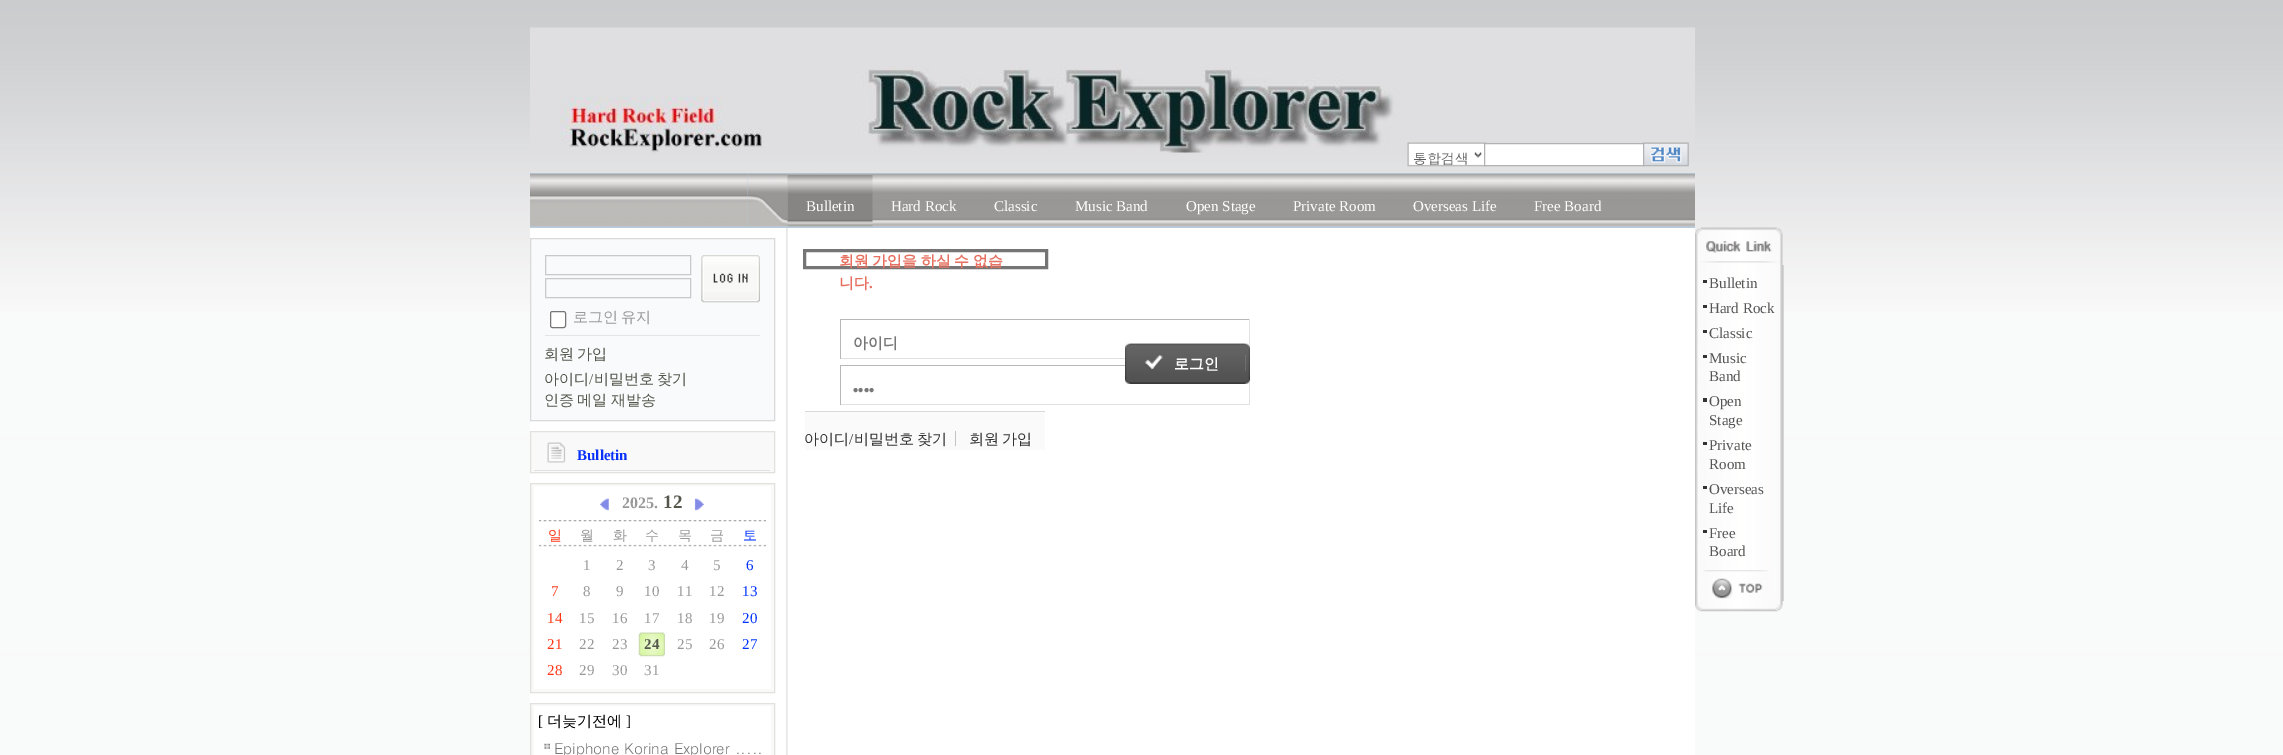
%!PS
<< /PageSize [2283 755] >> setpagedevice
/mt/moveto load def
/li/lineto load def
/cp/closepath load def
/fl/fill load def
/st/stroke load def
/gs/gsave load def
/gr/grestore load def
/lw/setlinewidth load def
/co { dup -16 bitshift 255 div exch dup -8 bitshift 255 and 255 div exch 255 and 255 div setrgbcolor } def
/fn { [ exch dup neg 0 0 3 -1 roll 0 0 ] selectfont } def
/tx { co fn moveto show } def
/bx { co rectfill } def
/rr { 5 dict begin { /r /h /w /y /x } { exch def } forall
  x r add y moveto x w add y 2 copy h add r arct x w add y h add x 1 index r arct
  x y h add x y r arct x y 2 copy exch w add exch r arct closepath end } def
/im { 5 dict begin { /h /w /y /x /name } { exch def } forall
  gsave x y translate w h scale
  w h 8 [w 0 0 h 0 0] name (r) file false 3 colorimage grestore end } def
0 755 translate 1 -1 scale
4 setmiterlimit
0 0 2283 755 16#FFFFFF bx
(media/1.raw) 0 0 2283 755 im
(media/2.raw) 530 27 1165 126 im
(media/3.raw) 561 97 201 57 im
(media/4.raw) 1407 142 80 25 im
(media/5.raw) 1642 142 47 25 im
1484.5 143.5 mt 1643.5 143.5 li 1643.5 165.5 li 1484.5 165.5 li cp gs fl gr
16#B2B2B2 co
st
530 173 1165 55 16#B7CBDA bx
(media/6.raw) 530 173 218 54 im
(media/7.raw) 747 173 41 54 im
(media/8.raw) 787 173 908 54 im
(media/9.raw) 787 175 86 52 im
831 228 864 527 16#FFFFFF bx
(media/10.raw) 530 228 301 527 im
16#F9FAFC co
530.5 238.5 mt 774.5 238.5 li 774.5 420.5 li 530.5 420.5 li cp gs fl gr
16#D9D9D9 co
st
16#C9C9C9 co
545.5 255.5 145 19 rectstroke
545.5 278.5 145 19 rectstroke
(media/11.raw) 701 255 59 48 im
16#FFFFFF co
550.5 311.5 15 16 2 rr gs fl gr
16#767676 co
st
545 335 215 1 16#E4E4E4 bx
16#F9F9F9 co
530.5 431.5 mt 774.5 431.5 li 774.5 472.5 li 530.5 472.5 li cp gs fl gr
16#E1E1DD co
st
534 470 236 1 16#E1E1DD bx
(media/12.raw) 547 442 19 21 im
16#F9F9F9 co
530.5 483.5 mt 774.5 483.5 li 774.5 692.5 li 530.5 692.5 li cp gs fl gr
16#E1E1DD co
st
534 486 237 203 16#FFFFFF bx
(media/13.raw) 539 520 227 27 im
(media/14.raw) 599 498 10 13 im
(media/15.raw) 694 498 10 13 im
(media/16.raw) 638 632 27 25 im
16#F9F9F9 co
530.5 703.5 mt 774.5 703.5 li 774.5 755.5 li 530.5 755.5 li cp gs fl gr
16#E1E1DD co
st
534 706 237 49 16#FFFFFF bx
(media/17.raw) 544 743 6 6 im
16#757575 co
3 lw
804.5 250.5 242 17 rectstroke
840 319 410 1 16#B7B7B7 bx
1249 319 1 27 16#E1E1E1 bx
840 358 410 1 16#E1E1E1 bx
840 319 1 40 16#B7B7B7 bx
840 365 410 1 16#B7B7B7 bx
1249 382 1 23 16#E1E1E1 bx
840 404 410 1 16#E1E1E1 bx
840 365 1 40 16#B7B7B7 bx
(media/18.raw) 1125 343 120 41 im
(media/19.raw) 1130 343 120 41 im
805 412 240 38 16#FAFAFA bx
805 411 240 1 16#D9D9D9 bx
955 431 1 15 16#C3C3C3 bx
(media/20.raw) 1695 227 88 38 im
(media/21.raw) 1695 265 89 337 im
1703 280 4 3 16#333333 bx
1703 305 4 3 16#333333 bx
1703 330 4 3 16#333333 bx
1703 355 4 3 16#333333 bx
1703 398 4 4 16#333333 bx
1703 442 4 3 16#333333 bx
1703 486 4 3 16#333333 bx
1703 530 4 3 16#333333 bx
(media/22.raw) 1703 570 66 29 im
(media/23.raw) 1695 598 88 14 im
(통합검색) 1413 164 /Dotum-Regular 14 16#5C5C5C tx
(Bulletin) 806 211 /LiberationSerif-Regular 15 16#FFFFFF tx
(Hard Rock) 891 211 /LiberationSerif-Regular 15 16#FFFFFF tx
(Classic) 994 211 /LiberationSerif-Regular 15 16#FFFFFF tx
(Music Band) 1075 211 /LiberationSerif-Regular 15 16#FFFFFF tx
(Open Stage) 1186 211 /LiberationSerif-Regular 15 16#FFFFFF tx
(Private Room) 1293 211 /LiberationSerif-Regular 15 16#FFFFFF tx
(Overseas Life) 1413 211 /LiberationSerif-Regular 15 16#FFFFFF tx
(Free Board) 1534 211 /LiberationSerif-Regular 15 16#FFFFFF tx
/WenQuanYiZenHei-Medium 15 fn
16#999999 co
573 322 mt -1 0 32 (로그인 유지) widthshow
16#54564B co
544 359 mt -1 0 32 (회원 가입) widthshow
(아이디) 544 384 /WenQuanYiZenHei-Medium 15 16#54564B tx
(/) 589 384 /LiberationSerif-Regular 15 16#54564B tx
/WenQuanYiZenHei-Medium 15 fn
594 384 mt -1 0 32 (비밀번호 찾기) widthshow
544 405 mt -1 0 32 (인증 메일 재발송) widthshow
(Bulletin) 577 460 /LiberationSerif-Bold 15 16#0830F9 tx
(2025.) 622 508 /LiberationSerif-Bold 16 16#999999 tx
(12) 663 508 /LiberationSerif-Bold 19 16#54564B tx
(일) 548 540 /WenQuanYiZenHei-Medium 14 16#FE3614 tx
(월) 580 540 /WenQuanYiZenHei-Medium 14 16#999999 tx
(화) 613 540 /WenQuanYiZenHei-Medium 14 16#999999 tx
(수) 645 540 /WenQuanYiZenHei-Medium 14 16#999999 tx
(목) 678 540 /WenQuanYiZenHei-Medium 14 16#999999 tx
(금) 710 540 /WenQuanYiZenHei-Medium 14 16#999999 tx
(토) 743 540 /WenQuanYiZenHei-Medium 14 16#0033FF tx
(1) 583 570 /LiberationSerif-Regular 15 16#999999 tx
(2) 616 570 /LiberationSerif-Regular 15 16#999999 tx
(3) 648 570 /LiberationSerif-Regular 15 16#999999 tx
(4) 681 570 /LiberationSerif-Regular 15 16#999999 tx
(5) 713 570 /LiberationSerif-Regular 15 16#999999 tx
(6) 746 570 /LiberationSerif-Regular 15 16#0033FF tx
(7) 551 596 /LiberationSerif-Regular 15 16#FE3614 tx
(8) 583 596 /LiberationSerif-Regular 15 16#999999 tx
(9) 616 596 /LiberationSerif-Regular 15 16#999999 tx
(10) 644 596 /LiberationSerif-Regular 15 16#999999 tx
(11) 677 596 /LiberationSerif-Regular 15 16#999999 tx
(12) 709 596 /LiberationSerif-Regular 15 16#999999 tx
(13) 742 596 /LiberationSerif-Regular 15 16#0033FF tx
(14) 547 623 /LiberationSerif-Regular 15 16#FE3614 tx
(15) 579 623 /LiberationSerif-Regular 15 16#999999 tx
(16) 612 623 /LiberationSerif-Regular 15 16#999999 tx
(17) 644 623 /LiberationSerif-Regular 15 16#999999 tx
(18) 677 623 /LiberationSerif-Regular 15 16#999999 tx
(19) 709 623 /LiberationSerif-Regular 15 16#999999 tx
(20) 742 623 /LiberationSerif-Regular 15 16#0033FF tx
(21) 547 649 /LiberationSerif-Regular 15 16#FE3614 tx
(22) 579 649 /LiberationSerif-Regular 15 16#999999 tx
(23) 612 649 /LiberationSerif-Regular 15 16#999999 tx
(24) 644 649 /LiberationSerif-Bold 15 16#54564B tx
(25) 677 649 /LiberationSerif-Regular 15 16#999999 tx
(26) 709 649 /LiberationSerif-Regular 15 16#999999 tx
(27) 742 649 /LiberationSerif-Regular 15 16#0033FF tx
(28) 547 675 /LiberationSerif-Regular 15 16#FE3614 tx
(29) 579 675 /LiberationSerif-Regular 15 16#999999 tx
(30) 612 675 /LiberationSerif-Regular 15 16#999999 tx
(31) 644 675 /LiberationSerif-Regular 15 16#999999 tx
([) 538 726 /LiberationSerif-Regular 15 16#000000 tx
(더늦기전에) 547 726 /WenQuanYiZenHei-Medium 15 16#000000 tx
(]) 626 726 /LiberationSerif-Regular 15 16#000000 tx
(Epiphone Korina Explorer .....) 554 754 /Dotum-Regular 15 16#777777 tx
/WenQuanYiZenHei-Bold 15 fn
16#E77161 co
839 266 mt -1 0 32 (회원 가입을 하실 수 없습) widthshow
(니다) 839 288 /WenQuanYiZenHei-Bold 15 16#E77161 tx
(.) 869 288 /LiberationSerif-Bold 15 16#E77161 tx
(아이디) 853 348 /WenQuanYiZenHei-Bold 15 16#777777 tx
(••••) 853 395 /LiberationSans-Bold 15 16#777777 tx
(로그인) 1174 369 /WenQuanYiZenHei-Bold 15 16#FFFFFF tx
(아이디) 804 444 /WenQuanYiZenHei-Medium 15 16#333333 tx
(/) 849 444 /LiberationSerif-Regular 15 16#333333 tx
/WenQuanYiZenHei-Medium 15 fn
854 444 mt -1 0 32 (비밀번호 찾기) widthshow
969 444 mt -1 0 32 (회원 가입) widthshow
(Bulletin) 1709 288 /LiberationSerif-Regular 15 16#555555 tx
(Hard Rock) 1709 313 /LiberationSerif-Regular 15 16#555555 tx
(Classic) 1709 338 /LiberationSerif-Regular 15 16#555555 tx
(Music) 1709 363 /LiberationSerif-Regular 15 16#555555 tx
(Band) 1709 381 /LiberationSerif-Regular 15 16#555555 tx
(Open) 1709 406 /LiberationSerif-Regular 15 16#555555 tx
(Stage) 1709 425 /LiberationSerif-Regular 15 16#555555 tx
(Private) 1709 450 /LiberationSerif-Regular 15 16#555555 tx
(Room) 1709 469 /LiberationSerif-Regular 15 16#555555 tx
(Overseas) 1709 494 /LiberationSerif-Regular 15 16#555555 tx
(Life) 1709 513 /LiberationSerif-Regular 15 16#555555 tx
(Free) 1709 538 /LiberationSerif-Regular 15 16#555555 tx
(Board) 1709 556 /LiberationSerif-Regular 15 16#555555 tx
showpage
